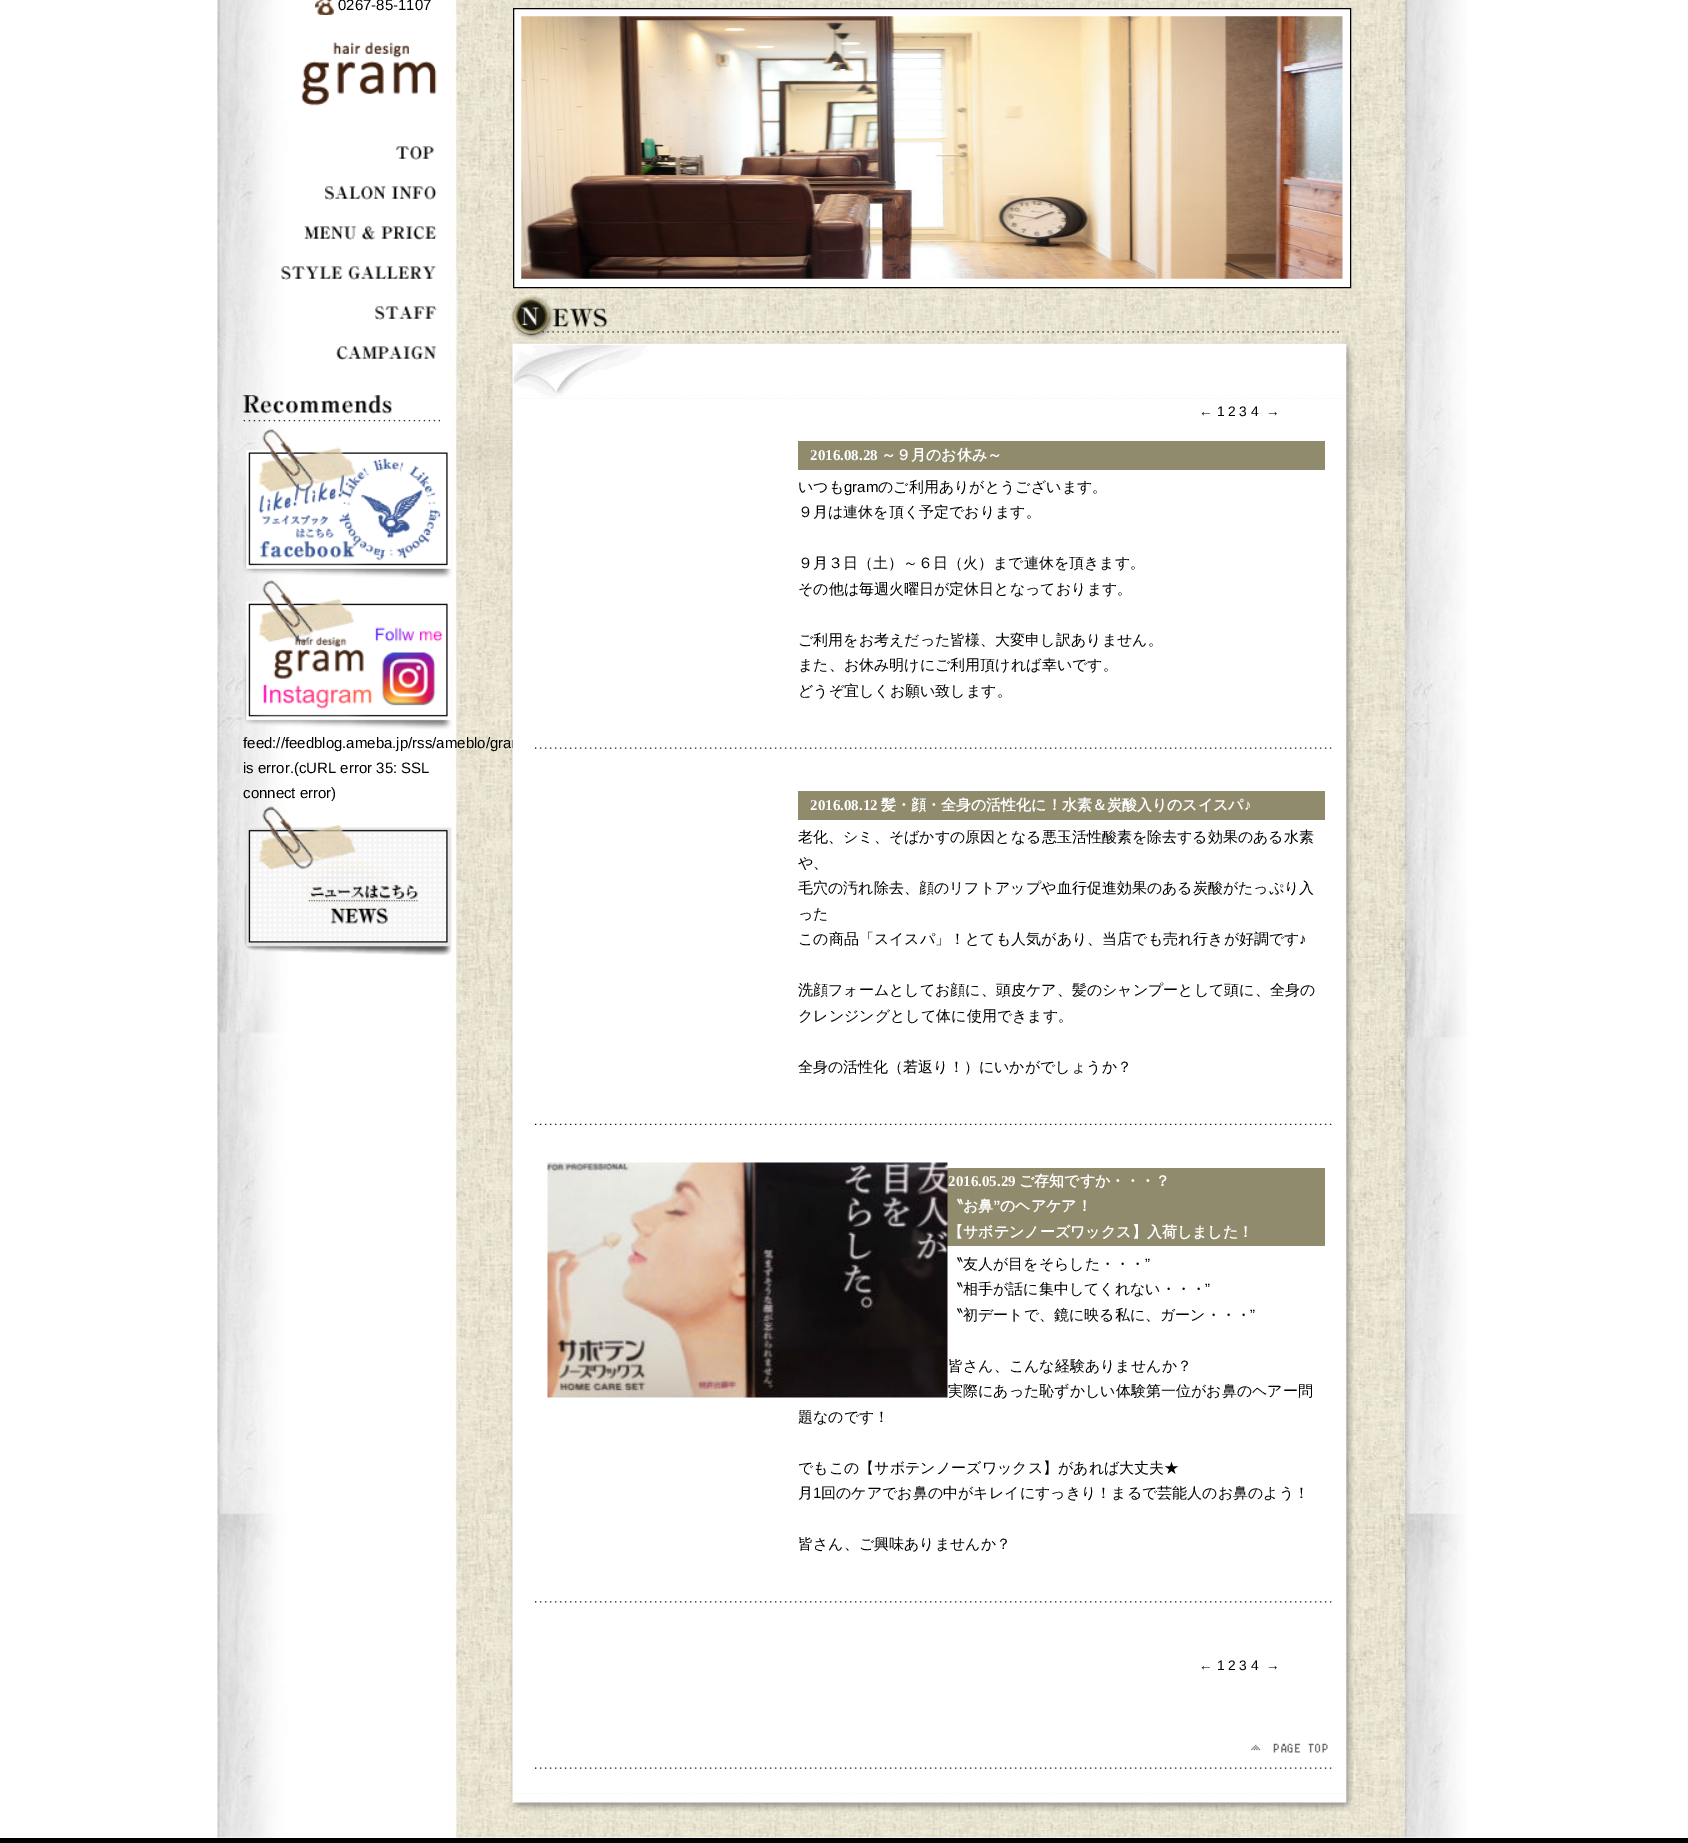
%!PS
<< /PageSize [1688 1843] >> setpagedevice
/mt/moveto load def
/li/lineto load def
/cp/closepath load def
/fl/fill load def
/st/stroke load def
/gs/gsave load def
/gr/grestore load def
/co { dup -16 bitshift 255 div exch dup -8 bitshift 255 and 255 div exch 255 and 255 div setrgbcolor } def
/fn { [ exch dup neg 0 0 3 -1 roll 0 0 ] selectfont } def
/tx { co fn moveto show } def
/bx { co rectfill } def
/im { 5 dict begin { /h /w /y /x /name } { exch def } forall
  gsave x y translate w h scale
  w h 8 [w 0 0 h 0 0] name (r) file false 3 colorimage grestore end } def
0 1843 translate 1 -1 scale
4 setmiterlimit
0 0 1688 1843 16#FFFFFF bx
(media/1.raw) 217 0 1250 1838 im
(media/2.raw) 315 0 19 15 im
(media/3.raw) 301 42 136 64 im
(media/4.raw) 396 146 38 14 im
(media/5.raw) 325 186 112 14 im
(media/6.raw) 303 226 134 14 im
(media/7.raw) 281 266 156 14 im
(media/8.raw) 375 306 62 14 im
(media/9.raw) 336 346 101 14 im
(media/10.raw) 242 395 198 27 im
(media/11.raw) 243 428 209 150 im
(media/12.raw) 243 580 209 150 im
(media/13.raw) 244 806 208 150 im
513.5 8.5 mt 1350.5 8.5 li 1350.5 287.5 li 513.5 287.5 li cp gs fl gr
16#000000 co
st
(media/14.raw) 521 16 822 263 im
(media/15.raw) 510 295 829 45 im
(media/16.raw) 510 342 844 57 im
0 1838 1688 5 16#000000 bx
(0267-85-1107) 338 10 /LiberationSans-Regular 15 16#000000 tx
(feed://feedblog.ameba.jp/rss/ameblo/gra) 243 748 /LiberationSans-Regular 15 16#000000 tx
(is error.\(cURL error 35: SSL) 243 773 /LiberationSans-Regular 15 16#000000 tx
(connect error\)) 243 798 /LiberationSans-Regular 15 16#000000 tx
(media/17.raw) 510 398 844 1396 im
(← 1 2 3 4) 1199 416 /LiberationSans-Regular 13.75 16#000000 tx
(→) 1266 416 /LiberationSans-Regular 13.75 16#000000 tx
798 441 527 29 16#908B6D bx
(2016.08.28) 810 460 /LiberationSerif-Bold 15 16#FFFFFF tx
(～９月のお休み～) 881 460 /WenQuanYiZenHei-Bold 15 16#FFFFFF tx
(いつも) 798 492 /WenQuanYiZenHei-Medium 15 16#000000 tx
(gram) 844 492 /LiberationSans-Regular 15 16#000000 tx
(のご利用ありがとうございます。) 878 492 /WenQuanYiZenHei-Medium 15 16#000000 tx
(９月は連休を頂く予定でおります。) 798 517 /WenQuanYiZenHei-Medium 15 16#000000 tx
(９月３日（土）～６日（火）まで連休を頂きます。) 798 568 /WenQuanYiZenHei-Medium 15 16#000000 tx
(その他は毎週火曜日が定休日となっております。) 798 594 /WenQuanYiZenHei-Medium 15 16#000000 tx
(ご利用をお考えだった皆様、大変申し訳ありません。) 798 645 /WenQuanYiZenHei-Medium 15 16#000000 tx
(また、お休み明けにご利用頂ければ幸いです。) 798 670 /WenQuanYiZenHei-Medium 15 16#000000 tx
(どうぞ宜しくお願い致します。) 798 696 /WenQuanYiZenHei-Medium 15 16#000000 tx
(media/18.raw) 535 747 797 2 im
798 791 527 29 16#908B6D bx
(2016.08.12) 810 810 /LiberationSerif-Bold 15 16#FFFFFF tx
(髪・顔・全身の活性化に！水素＆炭酸入りのスイスパ) 881 810 /WenQuanYiZenHei-Bold 15 16#FFFFFF tx
(♪) 1244 810 /LiberationSans-Bold 15 16#FFFFFF tx
(老化、シミ、そばかすの原因となる悪玉活性酸素を除去する効果のある水素) 798 842 /WenQuanYiZenHei-Medium 15 16#000000 tx
(や、) 798 868 /WenQuanYiZenHei-Medium 15 16#000000 tx
(毛穴の汚れ除去、顔のリフトアップや血行促進効果のある炭酸がたっぷり入) 798 893 /WenQuanYiZenHei-Medium 15 16#000000 tx
(った) 798 919 /WenQuanYiZenHei-Medium 15 16#000000 tx
(この商品「スイスパ」！とても人気があり、当店でも売れ行きが好調です) 798 944 /WenQuanYiZenHei-Medium 15 16#000000 tx
(♪) 1299 944 /LiberationSans-Regular 15 16#000000 tx
(洗顔フォームとしてお顔に、頭皮ケア、髪のシャンプーとして頭に、全身の) 798 995 /WenQuanYiZenHei-Medium 15 16#000000 tx
(クレンジングとして体に使用できます。) 798 1021 /WenQuanYiZenHei-Medium 15 16#000000 tx
(全身の活性化（若返り！）にいかがでしょうか？) 798 1072 /WenQuanYiZenHei-Medium 15 16#000000 tx
(media/19.raw) 535 1123 797 2 im
947 1168 378 78 16#908B6D bx
(media/20.raw) 547 1162 401 236 im
(2016.05.29) 948 1186 /LiberationSerif-Bold 15 16#FFFFFF tx
(ご存知ですか・・・？) 1019 1186 /WenQuanYiZenHei-Bold 15 16#FFFFFF tx
(〝お鼻) 948 1211 /WenQuanYiZenHei-Bold 15 16#FFFFFF tx
(”) 993 1211 /LiberationSans-Bold 15 16#FFFFFF tx
(のヘアケア！) 1000 1211 /WenQuanYiZenHei-Bold 15 16#FFFFFF tx
(【サボテンノーズワックス】入荷しました！) 948 1237 /WenQuanYiZenHei-Bold 15 16#FFFFFF tx
(〝友人が目をそらした・・・) 948 1269 /WenQuanYiZenHei-Medium 15 16#000000 tx
(”) 1145 1269 /LiberationSans-Regular 15 16#000000 tx
(〝相手が話に集中してくれない・・・) 948 1294 /WenQuanYiZenHei-Medium 15 16#000000 tx
(”) 1205 1294 /LiberationSans-Regular 15 16#000000 tx
(〝初デートで、鏡に映る私に、ガーン・・・) 948 1320 /WenQuanYiZenHei-Medium 15 16#000000 tx
(”) 1250 1320 /LiberationSans-Regular 15 16#000000 tx
(皆さん、こんな経験ありませんか？) 948 1371 /WenQuanYiZenHei-Medium 15 16#000000 tx
(実際にあった恥ずかしい体験第一位がお鼻のヘアー問) 948 1396 /WenQuanYiZenHei-Medium 15 16#000000 tx
(題なのです！) 798 1422 /WenQuanYiZenHei-Medium 15 16#000000 tx
(でもこの【サボテンノーズワックス】があれば大丈夫★) 798 1473 /WenQuanYiZenHei-Medium 15 16#000000 tx
(月) 798 1498 /WenQuanYiZenHei-Medium 15 16#000000 tx
(1) 813 1498 /LiberationSans-Regular 15 16#000000 tx
(回のケアでお鼻の中がキレイにすっきり！まるで芸能人のお鼻のよう！) 821 1498 /WenQuanYiZenHei-Medium 15 16#000000 tx
(皆さん、ご興味ありませんか？) 798 1549 /WenQuanYiZenHei-Medium 15 16#000000 tx
(media/21.raw) 535 1601 797 2 im
(← 1 2 3 4) 1199 1670 /LiberationSans-Regular 13.75 16#000000 tx
(→) 1266 1670 /LiberationSans-Regular 13.75 16#000000 tx
(media/22.raw) 535 1743 797 26 im
(media/23.raw) 510 1793 844 18 im
showpage
